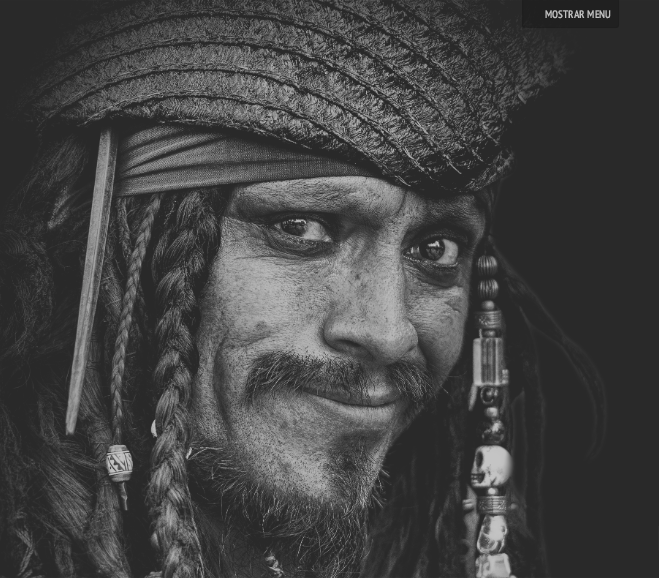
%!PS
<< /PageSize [659 578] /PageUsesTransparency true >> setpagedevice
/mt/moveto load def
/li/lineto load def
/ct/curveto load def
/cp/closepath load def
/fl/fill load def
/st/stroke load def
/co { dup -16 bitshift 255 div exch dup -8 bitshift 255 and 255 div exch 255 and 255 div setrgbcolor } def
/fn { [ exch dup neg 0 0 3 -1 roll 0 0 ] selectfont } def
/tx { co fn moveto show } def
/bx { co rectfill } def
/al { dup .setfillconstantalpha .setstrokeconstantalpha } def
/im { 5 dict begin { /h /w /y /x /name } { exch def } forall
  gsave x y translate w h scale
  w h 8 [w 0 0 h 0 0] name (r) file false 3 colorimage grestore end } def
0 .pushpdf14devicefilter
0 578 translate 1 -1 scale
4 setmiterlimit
0 0 659 578 16#6A6A6A bx
(media/1.raw) 0 0 659 578 im
0.21 al
16#000000 co
522 -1 mt 619 -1 li 619 25 li 619 26.5 617.5 28 616 28 ct 525 28 li 523.5 28 522 26.5 522 25 ct cp fl
0.07 al
522.5 -.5 mt 618.5 -.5 li 618.5 25 li 618.5 26.5 617.5 27.5 616 27.5 ct 525 27.5 li 523.5 27.5 522.5 26.5 522.5 25 ct cp st
1 al
(MOSTRAR MENU) 545 18 /PTSansNarrow-Bold 11 16#BFBFBF tx
.poppdf14devicefilter showpage
